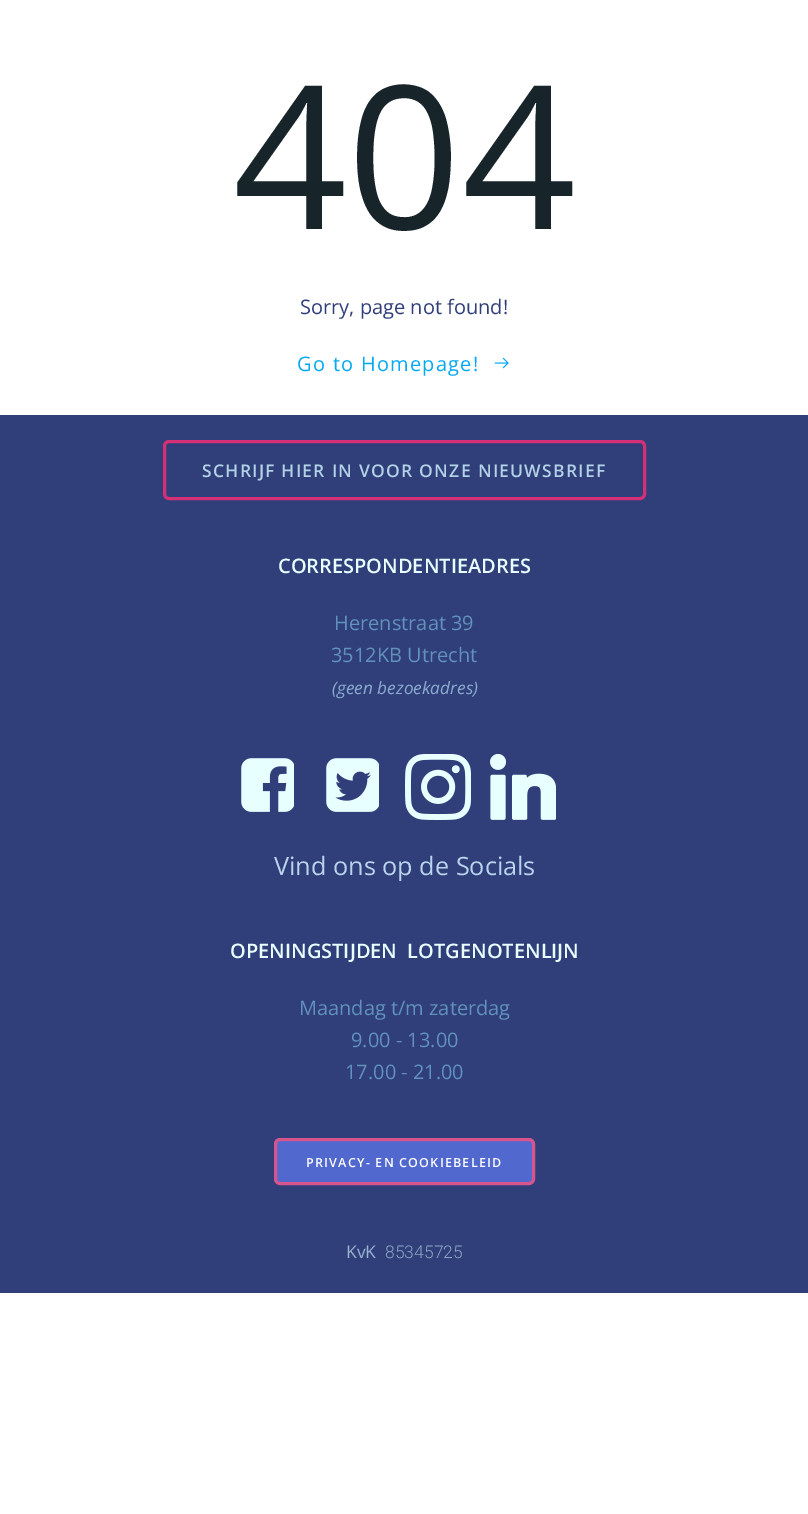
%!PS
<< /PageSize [808 1514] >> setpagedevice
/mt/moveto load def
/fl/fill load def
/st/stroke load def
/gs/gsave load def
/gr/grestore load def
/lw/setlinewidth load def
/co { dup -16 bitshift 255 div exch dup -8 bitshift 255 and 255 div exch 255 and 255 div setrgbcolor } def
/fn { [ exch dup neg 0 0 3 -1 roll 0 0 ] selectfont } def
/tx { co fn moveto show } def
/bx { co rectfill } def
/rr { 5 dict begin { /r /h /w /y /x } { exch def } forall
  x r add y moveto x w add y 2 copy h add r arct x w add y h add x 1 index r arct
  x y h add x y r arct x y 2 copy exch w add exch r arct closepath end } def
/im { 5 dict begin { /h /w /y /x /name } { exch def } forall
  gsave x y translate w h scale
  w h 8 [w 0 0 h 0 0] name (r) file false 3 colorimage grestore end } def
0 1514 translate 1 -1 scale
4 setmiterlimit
0 0 808 1514 16#FFFFFF bx
(media/1.raw) 494 357 15 12 im
0 415 808 878 16#303E7A bx
16#D33077 co
3 lw
164.5 441.5 480 57 4.5 rr st
(media/2.raw) 241 758 53 54 im
(media/3.raw) 326 758 53 54 im
(media/4.raw) 405 754 66 66 im
(media/5.raw) 490 754 66 66 im
16#5169CF co
275.5 1139.5 258 44 4.5 rr gs fl gr
16#D8548E co
st
(404) 233 229 /OpenSans-Regular 200 16#17252A tx
(Sorry, page not found!) 300 314 /OpenSans-Regular 20 16#303E7A tx
16#03A9F4 co
297 371 mt 1.25 0 (Go to Homepage!) ashow
/OpenSans-SemiBold 17.5 fn
16#B2D2E6 co
202 477 mt 1.25 0 (SCHRIJF HIER IN VOOR ONZE NIEUWSBRIEF) ashow
(CORRESPONDENTIEADRES) 278 573 /OpenSans-SemiBold 20 16#E8FFFF tx
(Herenstraat 39) 334 630 /OpenSans-Regular 20 16#6192BC tx
(3512KB Utrecht) 331 662 /OpenSans-Regular 20 16#6192BC tx
(\(geen bezoekadres\)) 332 694 /OpenSans-Italic 17.25 16#8AADCF tx
(Vind ons op de Socials) 274 875 /OpenSans-Regular 25.25 16#B9D4EC tx
(OPENINGSTIJDEN  LOTGENOTENLIJN) 230 958 /OpenSans-SemiBold 20 16#E8FFFF tx
(Maandag t/m zaterdag) 299 1015 /OpenSans-Regular 20 16#6192BC tx
(9.00 - 13.00) 351 1047 /OpenSans-Regular 20 16#6192BC tx
(17.00 - 21.00) 345 1079 /OpenSans-Regular 20 16#6192BC tx
/OpenSans-SemiBold 12.5 fn
16#FFFFFF co
306 1167 mt 1.25 0 (PRIVACY- EN COOKIEBELEID) ashow
(KvK) 346 1258 /OpenSans-Regular 17.5 16#99B5D1 tx
(85345725) 385 1258 /Roboto-Light 17.5 16#8BA7C2 tx
showpage
